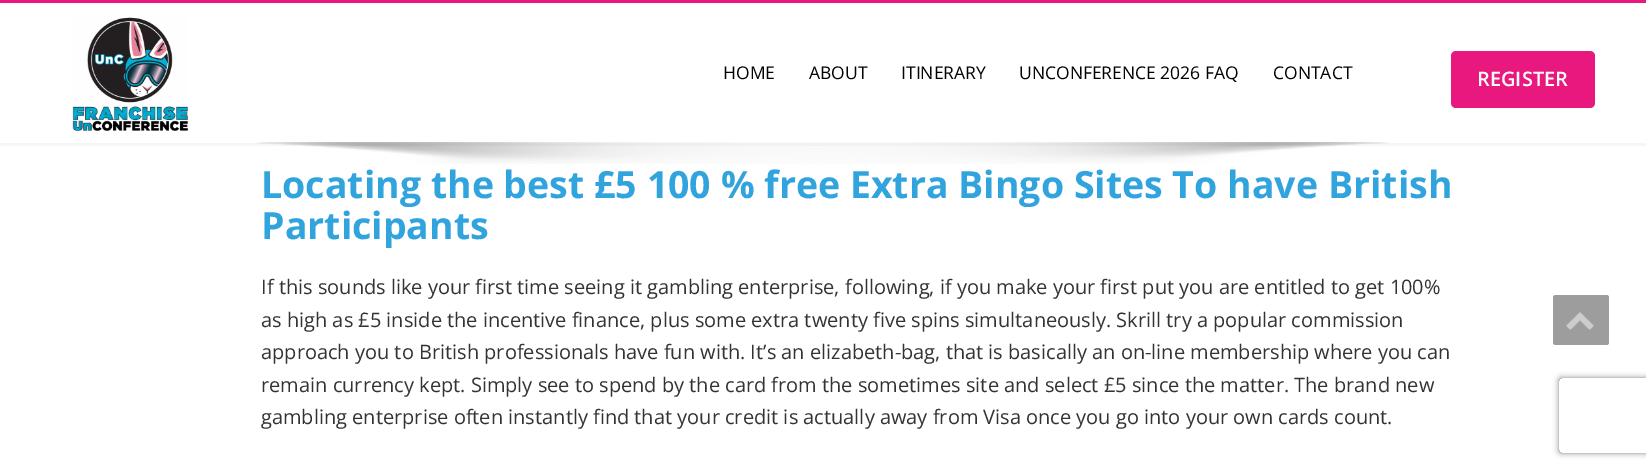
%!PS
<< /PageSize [1646 469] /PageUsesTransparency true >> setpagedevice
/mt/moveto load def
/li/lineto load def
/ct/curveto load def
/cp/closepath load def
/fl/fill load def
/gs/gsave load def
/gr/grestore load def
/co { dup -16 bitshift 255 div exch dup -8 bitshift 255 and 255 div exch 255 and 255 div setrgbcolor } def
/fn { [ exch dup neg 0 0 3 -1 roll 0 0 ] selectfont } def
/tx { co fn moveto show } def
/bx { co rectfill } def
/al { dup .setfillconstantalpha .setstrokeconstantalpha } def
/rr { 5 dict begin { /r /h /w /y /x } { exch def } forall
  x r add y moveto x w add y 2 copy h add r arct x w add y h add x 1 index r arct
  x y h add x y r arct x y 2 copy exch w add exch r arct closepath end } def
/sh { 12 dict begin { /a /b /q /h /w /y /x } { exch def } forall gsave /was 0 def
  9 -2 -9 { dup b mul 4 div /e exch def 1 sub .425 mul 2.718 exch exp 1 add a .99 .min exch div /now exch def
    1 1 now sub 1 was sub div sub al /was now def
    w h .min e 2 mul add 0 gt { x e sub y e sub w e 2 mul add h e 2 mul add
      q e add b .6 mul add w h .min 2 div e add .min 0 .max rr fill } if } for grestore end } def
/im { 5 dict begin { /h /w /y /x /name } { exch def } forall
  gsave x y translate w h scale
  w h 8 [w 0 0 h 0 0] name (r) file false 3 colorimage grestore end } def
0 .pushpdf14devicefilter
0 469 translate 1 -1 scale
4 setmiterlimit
0 0 1646 469 16#FFFFFF bx
0 0 1646 3 16#E8187E bx
0 143 1646 3 16#F7F5F5 bx
(media/1.raw) 72 17 116 114 im
16#E8187E co
1451 51 144 57 5 rr fl
(media/2.raw) 256 142 1132 22 im
16#9D9D9D co
1553 295 56 50 2.5 rr fl
(media/3.raw) 1566 312 28 18 im
gs
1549 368 mt 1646 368 li 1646 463 li 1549 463 li cp 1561.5 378 mt 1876.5 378 li 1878 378 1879 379 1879 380.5 ct 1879 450.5 li 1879 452 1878 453 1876.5 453 ct 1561.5 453 li 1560 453 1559 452 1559 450.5 ct 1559 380.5 li 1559 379 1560 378 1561.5 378 ct cp eoclip newpath
16#808080 co
1559 378 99 75 2.5 3 1 sh
gr
(HOME) 723 79 /OpenSans-Regular 17.5 16#000000 tx
(ABOUT) 809 79 /OpenSans-Regular 17.5 16#000000 tx
(ITINERARY) 901 79 /OpenSans-Regular 17.5 16#000000 tx
(UNCONFERENCE 2026 FAQ) 1019 79 /OpenSans-Regular 17.5 16#000000 tx
(CONTACT) 1273 79 /OpenSans-Regular 17.5 16#000000 tx
(REGISTER) 1477 86 /OpenSans-SemiBold 20 16#FFFFFF tx
(Locating the best £5 100 % free Extra Bingo Sites To have British) 261 198 /OpenSans-Bold 37.5 16#31A3DD tx
(Participants) 261 239 /OpenSans-Bold 37.5 16#31A3DD tx
(If this sounds like your first time seeing it gambling enterprise, following, if you make your first put you are entitled to get 100%) 261 294 /OpenSans-Regular 20 16#333333 tx
(as high as £5 inside the incentive finance, plus some extra twenty five spins simultaneously. Skrill try a popular commission) 261 327 /OpenSans-Regular 20 16#333333 tx
(approach you to British professionals have fun with. It’s an elizabeth-bag, that is basically an on-line membership where you can) 261 359 /OpenSans-Regular 20 16#333333 tx
(remain currency kept. Simply see to spend by the card from the sometimes site and select £5 since the matter. The brand new) 261 392 /OpenSans-Regular 20 16#333333 tx
(gambling enterprise often instantly find that your credit is actually away from Visa once you go into your own cards count.) 261 424 /OpenSans-Regular 20 16#333333 tx
.poppdf14devicefilter showpage
